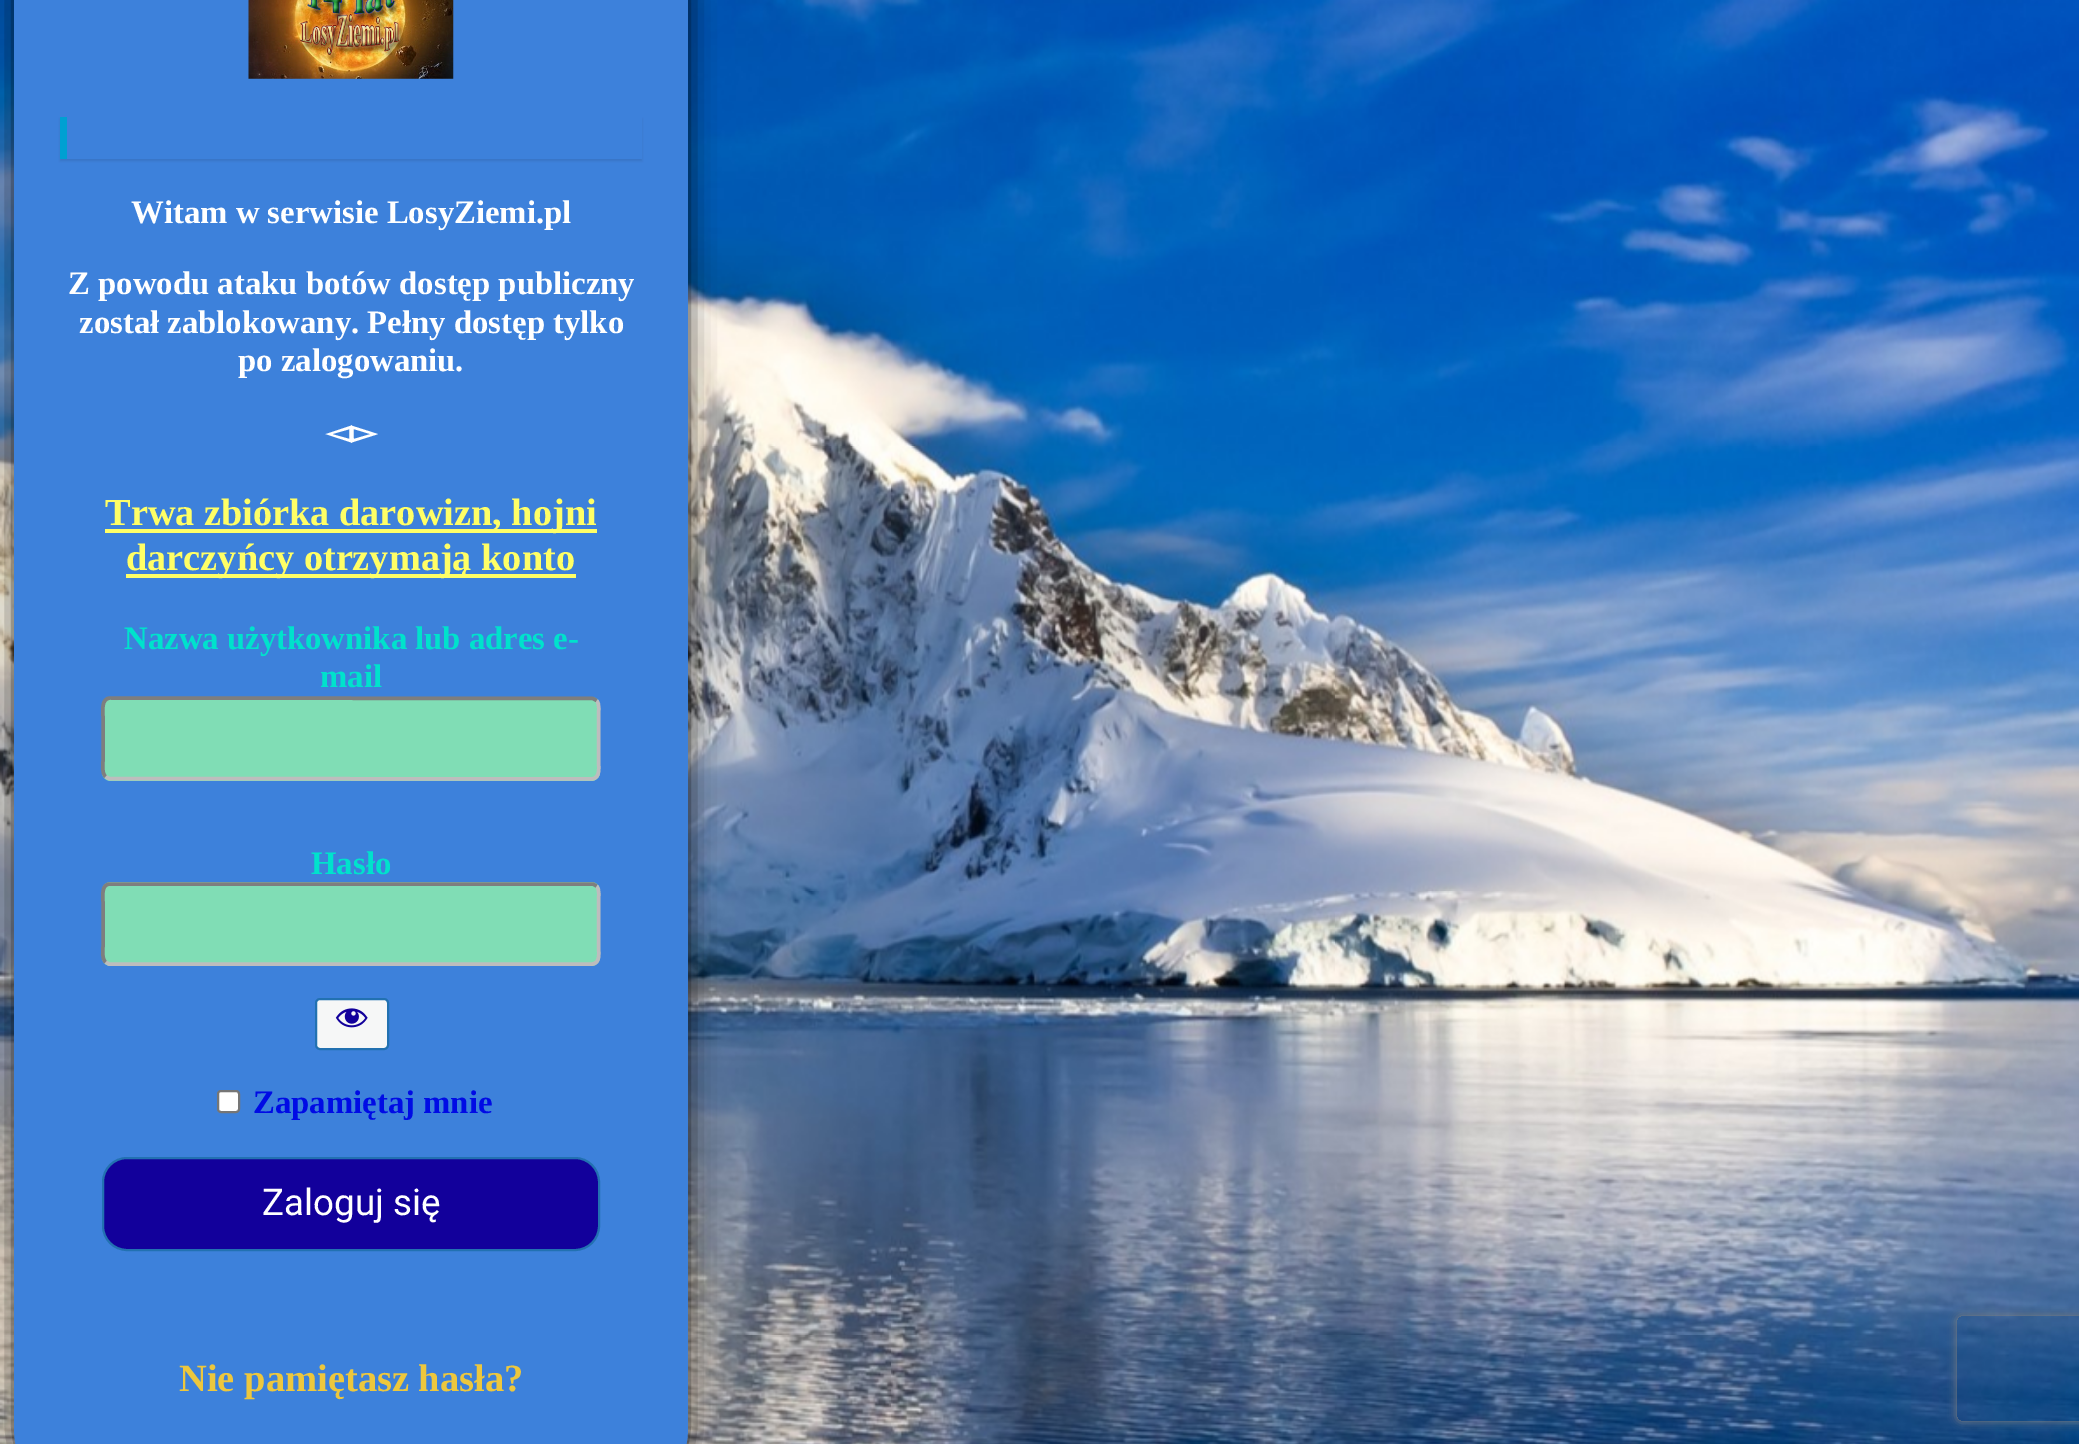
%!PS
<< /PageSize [2079 1444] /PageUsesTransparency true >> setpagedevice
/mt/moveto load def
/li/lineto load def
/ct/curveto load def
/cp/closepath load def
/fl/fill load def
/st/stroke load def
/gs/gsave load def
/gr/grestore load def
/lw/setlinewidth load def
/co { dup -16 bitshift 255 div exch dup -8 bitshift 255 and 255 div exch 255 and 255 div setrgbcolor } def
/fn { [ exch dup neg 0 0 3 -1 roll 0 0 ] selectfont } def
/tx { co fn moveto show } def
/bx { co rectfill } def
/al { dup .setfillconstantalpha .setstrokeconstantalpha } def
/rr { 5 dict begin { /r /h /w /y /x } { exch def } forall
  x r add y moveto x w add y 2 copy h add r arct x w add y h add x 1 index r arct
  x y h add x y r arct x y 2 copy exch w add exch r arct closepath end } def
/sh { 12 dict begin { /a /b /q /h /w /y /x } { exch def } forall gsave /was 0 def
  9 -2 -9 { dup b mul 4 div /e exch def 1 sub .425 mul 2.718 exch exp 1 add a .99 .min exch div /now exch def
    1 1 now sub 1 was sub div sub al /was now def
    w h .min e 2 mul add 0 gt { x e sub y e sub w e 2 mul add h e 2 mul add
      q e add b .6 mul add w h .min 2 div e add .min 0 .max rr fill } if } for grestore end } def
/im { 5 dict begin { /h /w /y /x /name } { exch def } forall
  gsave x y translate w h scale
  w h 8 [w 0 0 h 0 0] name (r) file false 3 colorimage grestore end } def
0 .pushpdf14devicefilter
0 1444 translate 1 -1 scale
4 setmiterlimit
0 0 2079 1444 16#FFFFFF bx
(media/1.raw) 0 0 2079 1444 im
16#000000 co
14 -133 674 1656 95 13 .8 sh
16#3D81DB co
14 -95 674 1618 95 rr fl
(media/2.raw) 248 0 206 79 im
gs
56 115 mt 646 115 li 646 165 li 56 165 li cp 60 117 mt 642 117 li 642 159 li 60 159 li cp eoclip newpath
16#000000 co
60 119 582 42 0 1 .1 sh
gr
60 117 7 42 16#00A0D2 bx
105 529 492 4 16#FFFF66 bx
126 574 450 4 16#FFFF66 bx
16#80DDB5 co
102 697 498 84 9 rr fl
16#BDBDBD co
3.5 lw
596.5 700.5 mt 600 704 598.5 712.5 598.5 716.5 ct 598.5 760.5 li 598.5 766 601 778.5 591.5 779 ct 109 778.5 li 105.5 776.5 li st
16#7E7E7E co
105.5 776.5 mt 101.5 773 103 764.5 103 760.5 ct 103 716.5 li 103 711 101 698.5 110 698 ct 593 698.5 li 596.5 700.5 li st
16#80DDB5 co
102 882 498 84 9 rr fl
16#BDBDBD co
596.5 886 mt 600 889.5 598.5 898 598.5 902 ct 598.5 946 li 598.5 951.5 601 964 591.5 964 ct 109 964 li 105.5 962 li st
16#7E7E7E co
105.5 962 mt 101.5 958.5 103 950 103 946 ct 103 902 li 103 896.5 101 884 110 884 ct 593 884 li 596.5 886 li st
16#F6F7F7 co
316 999 72 50 4 rr gs fl gr
16#2271B1 co
2 lw
st
(media/3.raw) 335 1008 33 20 im
16#FFFFFF co
218 1091 21 21 3 rr gs fl gr
16#767676 co
st
16#12009B co
103 1158 496 92 24 rr gs fl gr
16#2271B1 co
st
gs
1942 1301 mt 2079 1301 li 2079 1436 li 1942 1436 li cp 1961 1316 mt 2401 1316 li 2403 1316 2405 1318 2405 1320 ct 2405 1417 li 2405 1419 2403 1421 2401 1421 ct 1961 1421 li 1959 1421 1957 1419 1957 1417 ct 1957 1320 li 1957 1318 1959 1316 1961 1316 ct cp eoclip newpath
16#808080 co
1957 1316 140 105 4 4.5 1 sh
gr
(Witam w serwisie LosyZiemi.pl) 131 223 /LiberationSerif-Bold 32.75 16#FFFFFF tx
(Z powodu ataku botów dostęp publiczny) 68 294 /LiberationSerif-Bold 32.75 16#FFFFFF tx
(został zablokowany. Pełny dostęp tylko) 79 333 /LiberationSerif-Bold 32.75 16#FFFFFF tx
(po zalogowaniu.) 238 371 /LiberationSerif-Bold 32.75 16#FFFFFF tx
(◅▻) 326 443 /DejaVuSans-Bold 32.75 16#FFFFFF tx
(Trwa zbiórka darowizn, hojni) 105 525 /LiberationSerif-Bold 38.3 16#FFFF66 tx
(darczyńcy otrzymają konto) 126 570 /LiberationSerif-Bold 38.3 16#FFFF66 tx
(Nazwa użytkownika lub adres e-) 124 649 /LiberationSerif-Bold 32.75 16#00E2CC tx
(mail) 320 687 /LiberationSerif-Bold 32.75 16#00E2CC tx
(Hasło) 311 874 /LiberationSerif-Bold 32.75 16#00E2CC tx
(Zapamiętaj mnie) 253 1113 /LiberationSerif-Bold 32.75 16#000BE5 tx
(Zaloguj się) 262 1215 /Roboto-Regular 36.75 16#FFFFFF tx
(Nie pamiętasz hasła?) 179 1391 /LiberationSerif-Bold 38.5 16#EDC73D tx
.poppdf14devicefilter showpage
